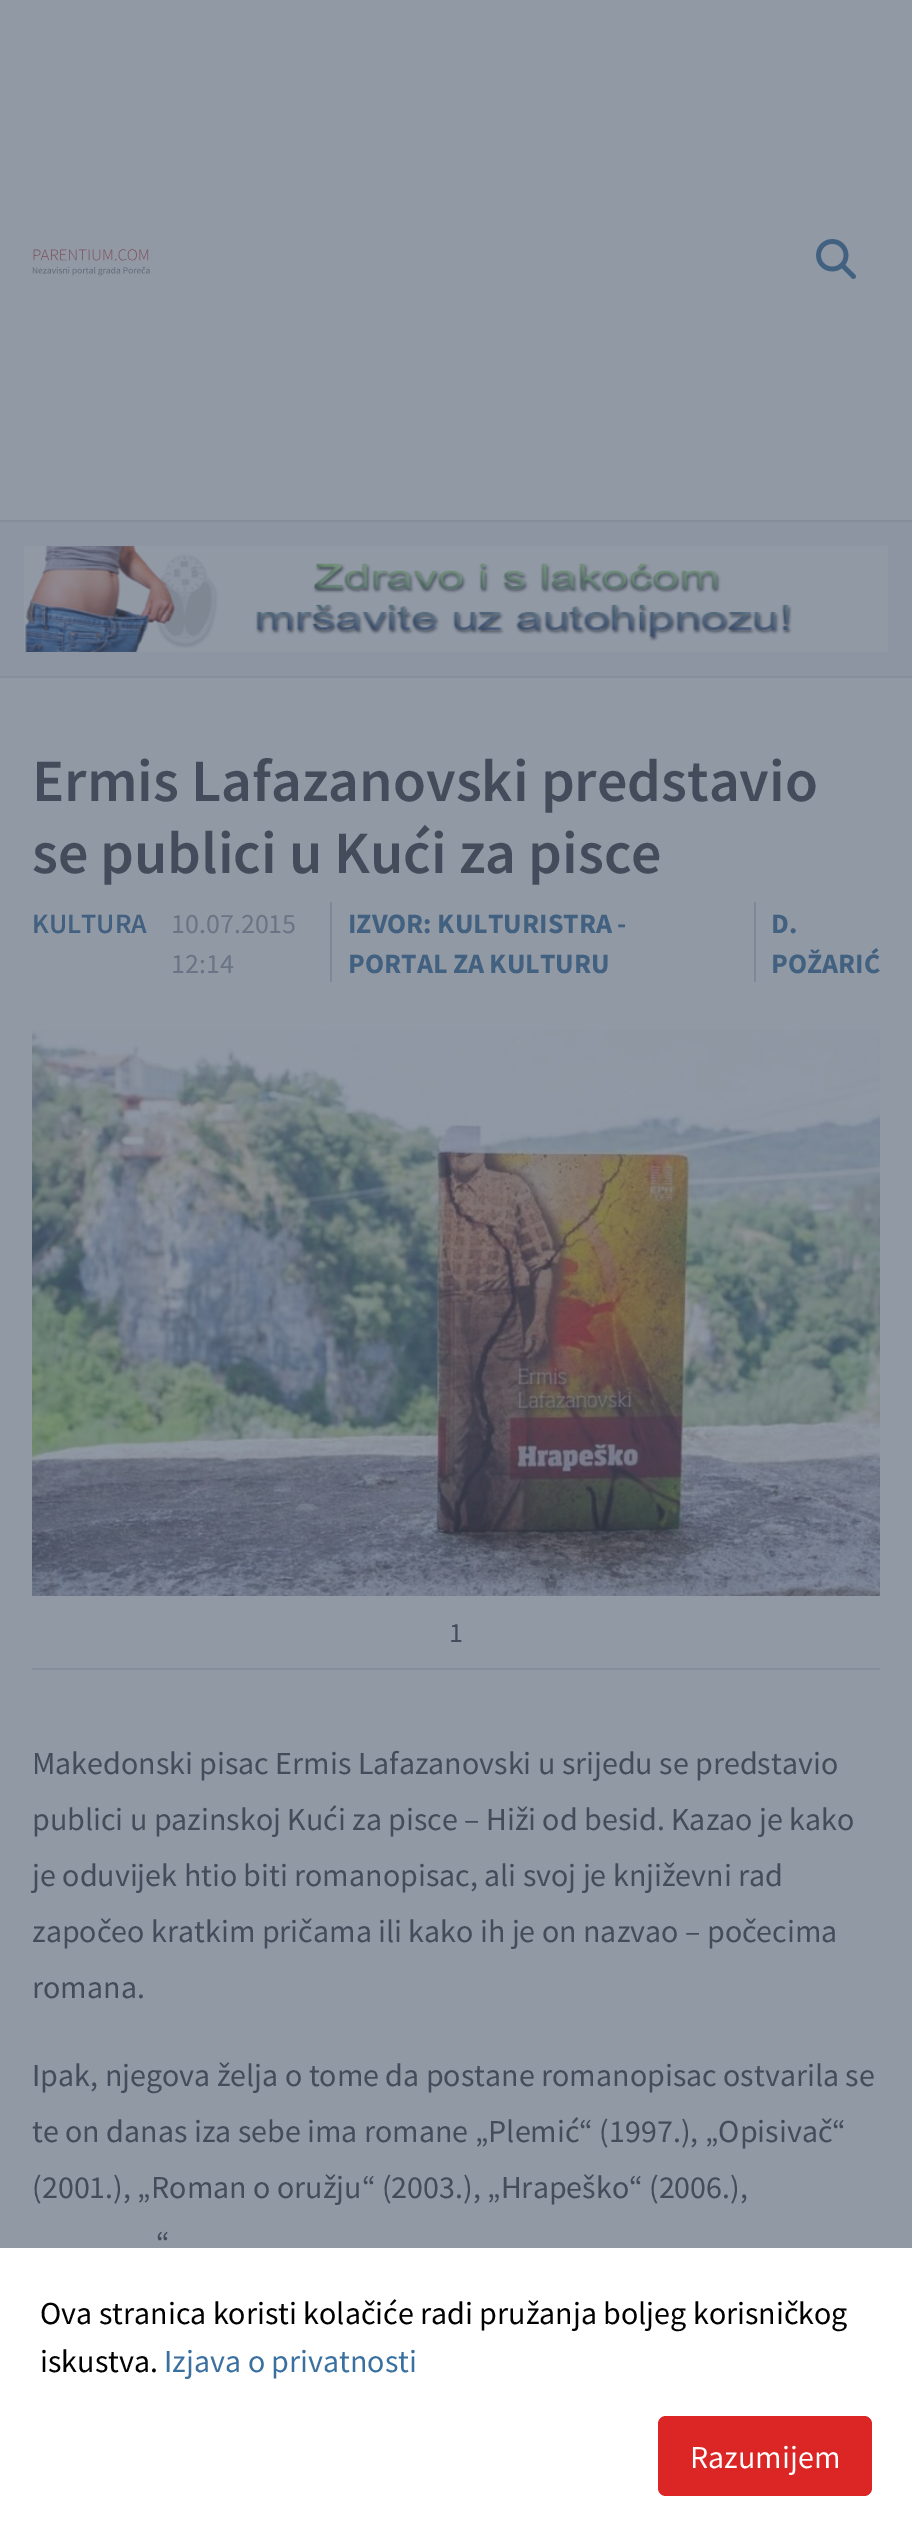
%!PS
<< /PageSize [912 2536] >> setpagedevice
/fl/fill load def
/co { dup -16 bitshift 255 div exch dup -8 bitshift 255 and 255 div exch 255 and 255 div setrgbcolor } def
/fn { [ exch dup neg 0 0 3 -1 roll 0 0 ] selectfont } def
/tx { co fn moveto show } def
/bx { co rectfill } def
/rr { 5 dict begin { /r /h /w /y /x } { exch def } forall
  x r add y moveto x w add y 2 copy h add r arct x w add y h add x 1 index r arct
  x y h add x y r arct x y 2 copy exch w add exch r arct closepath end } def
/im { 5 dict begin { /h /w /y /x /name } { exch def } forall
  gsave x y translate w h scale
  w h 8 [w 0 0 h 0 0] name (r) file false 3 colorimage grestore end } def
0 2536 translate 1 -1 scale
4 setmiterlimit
0 0 912 2536 16#9199A5 bx
(media/1.raw) 32 249 118 27 im
(media/2.raw) 816 239 40 40 im
0 522 912 154 16#8C95A1 bx
0 520 912 2 16#868E9B bx
0 676 912 2 16#868E9B bx
(media/3.raw) 24 546 864 106 im
330 902 2 80 16#7E8897 bx
754 902 2 80 16#7E8897 bx
(media/4.raw) 32 1030 848 566 im
32 1668 848 2 16#868E9B bx
0 2248 912 288 16#FFFFFF bx
16#DC2626 co
658 2416 214 80 8 rr fl
(Ermis Lafazanovski predstavio) 32 801 /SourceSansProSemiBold-SemiBold 60 16#444C5B tx
(se publici u Kući za pisce) 32 873 /SourceSansProSemiBold-SemiBold 60 16#444C5B tx
(KULTURA) 32 933 /SourceSansProSemiBold-SemiBold 28 16#42607F tx
(10.07.2015) 171 933 /SourceSansPro-Regular 28 16#697485 tx
(12:14) 171 973 /SourceSansPro-Regular 28 16#697485 tx
(IZVOR: KULTURISTRA -) 348 933 /SourceSansPro-Bold 28 16#42607F tx
(PORTAL ZA KULTURU) 348 973 /SourceSansPro-Bold 28 16#42607F tx
(D.) 771 933 /SourceSansPro-Bold 28 16#42607F tx
(POŽARIĆ) 771 973 /SourceSansPro-Bold 28 16#42607F tx
(1) 449 1642 /SourceSansPro-Regular 28 16#444C5B tx
(Makedonski pisac Ermis Lafazanovski u srijedu se predstavio) 32 1774 /SourceSansPro-Regular 32 16#444C5B tx
(publici u pazinskoj Kući za pisce – Hiži od besid. Kazao je kako) 32 1830 /SourceSansPro-Regular 32 16#444C5B tx
(je oduvijek htio biti romanopisac, ali svoj je književni rad) 32 1886 /SourceSansPro-Regular 32 16#444C5B tx
(započeo kratkim pričama ili kako ih je on nazvao – počecima) 32 1942 /SourceSansPro-Regular 32 16#444C5B tx
(romana.) 32 1998 /SourceSansPro-Regular 32 16#444C5B tx
(Ipak, njegova želja o tome da postane romanopisac ostvarila se) 32 2086 /SourceSansPro-Regular 32 16#444C5B tx
(te on danas iza sebe ima romane „Plemić“ \(1997.\), „Opisivač“) 32 2142 /SourceSansPro-Regular 32 16#444C5B tx
(\(2001.\), „Roman o oružju“ \(2003.\), „Hrapeško“ \(2006.\),) 32 2198 /SourceSansPro-Regular 32 16#444C5B tx
(“) 156 2254 /SourceSansPro-Regular 32 16#444C5B tx
(Ova stranica koristi kolačiće radi pružanja boljeg korisničkog) 40 2324 /SourceSansPro-Regular 32 16#000000 tx
(iskustva.) 40 2372 /SourceSansPro-Regular 32 16#000000 tx
(Izjava o privatnosti) 164 2372 /SourceSansPro-Regular 32 16#3A70A0 tx
(Razumijem) 690 2468 /SourceSansPro-Regular 32 16#FFFFFF tx
showpage
